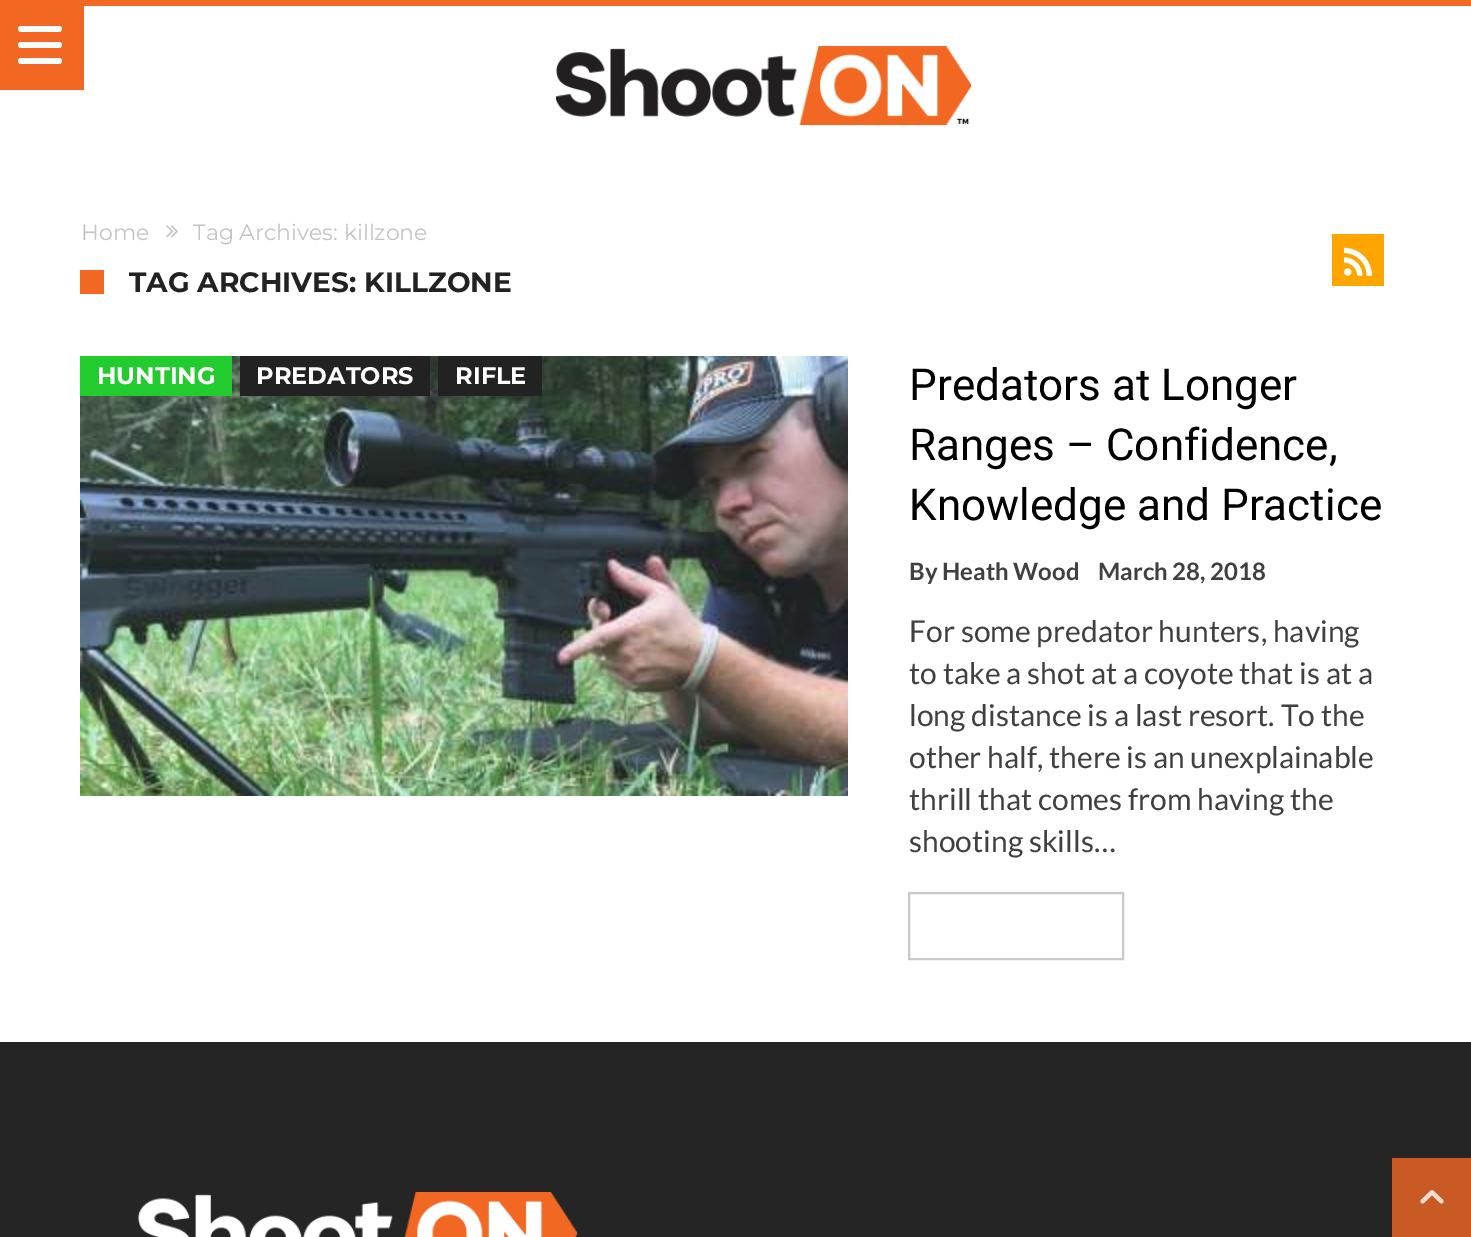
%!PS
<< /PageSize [1471 1237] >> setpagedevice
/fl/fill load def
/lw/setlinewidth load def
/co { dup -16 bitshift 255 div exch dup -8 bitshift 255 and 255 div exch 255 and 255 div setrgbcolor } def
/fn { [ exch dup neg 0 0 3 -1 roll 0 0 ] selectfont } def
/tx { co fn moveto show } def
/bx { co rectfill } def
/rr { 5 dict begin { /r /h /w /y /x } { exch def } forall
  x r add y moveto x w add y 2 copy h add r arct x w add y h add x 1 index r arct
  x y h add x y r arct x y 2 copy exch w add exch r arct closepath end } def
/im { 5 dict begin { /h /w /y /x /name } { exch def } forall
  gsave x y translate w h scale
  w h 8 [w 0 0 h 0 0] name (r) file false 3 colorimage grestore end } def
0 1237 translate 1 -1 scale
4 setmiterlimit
0 0 1471 1237 16#FFFFFF bx
0 0 1471 6 16#F26722 bx
0 6 84 84 16#F26722 bx
16#FFFFFF co
18 26 44 6 3 rr fl
18 42 44 6 3 rr fl
18 58 44 6 3 rr fl
(media/1.raw) 556 46 416 80 im
(media/2.raw) 166 225 12 13 im
80 270 24 24 16#F26722 bx
1332 234 52 52 16#FFA500 bx
(media/3.raw) 1344 247 28 29 im
(media/4.raw) 80 356 768 440 im
80 356 152 40 16#22CC2E bx
240 356 190 40 16#222222 bx
438 356 104 40 16#222222 bx
16#C9C9C9 co
2 lw
909 893 214 66 rectstroke
0 1042 1471 195 16#252525 bx
(media/5.raw) 138 1192 440 45 im
1392 1158 79 79 16#C95A23 bx
(media/6.raw) 1420 1190 24 14 im
(Home) 81 240 /Montserrat-Regular 22 16#C3C3C3 tx
(Tag Archives: killzone) 193 240 /Montserrat-Regular 22 16#C3C3C3 tx
(TAG ARCHIVES: KILLZONE) 129 292 /Montserrat-Bold 28 16#222222 tx
(HUNTING) 97 384 /Montserrat-Bold 24 16#FFFFFF tx
(PREDATORS) 256 384 /Montserrat-Bold 24 16#FFFFFF tx
(RIFLE) 455 384 /Montserrat-Bold 24 16#FFFFFF tx
(Predators at Longer) 909 400 /Roboto-Regular 44 16#000000 tx
(Ranges – Confidence,) 909 460 /Roboto-Regular 44 16#000000 tx
(Knowledge and Practice) 909 520 /Roboto-Regular 44 16#000000 tx
(By Heath Wood) 909 580 /Lato-Bold 24 16#404040 tx
(March 28, 2018) 1098 580 /Lato-Bold 24 16#404040 tx
(For some predator hunters, having) 909 642 /Lato-Regular 30 16#404040 tx
(to take a shot at a coyote that is at a) 909 684 /Lato-Regular 30 16#404040 tx
(long distance is a last resort. To the) 909 726 /Lato-Regular 30 16#404040 tx
(other half, there is an unexplainable) 909 768 /Lato-Regular 30 16#404040 tx
(thrill that comes from having the) 909 810 /Lato-Regular 30 16#404040 tx
(shooting skills…) 909 852 /Lato-Regular 30 16#404040 tx
showpage
